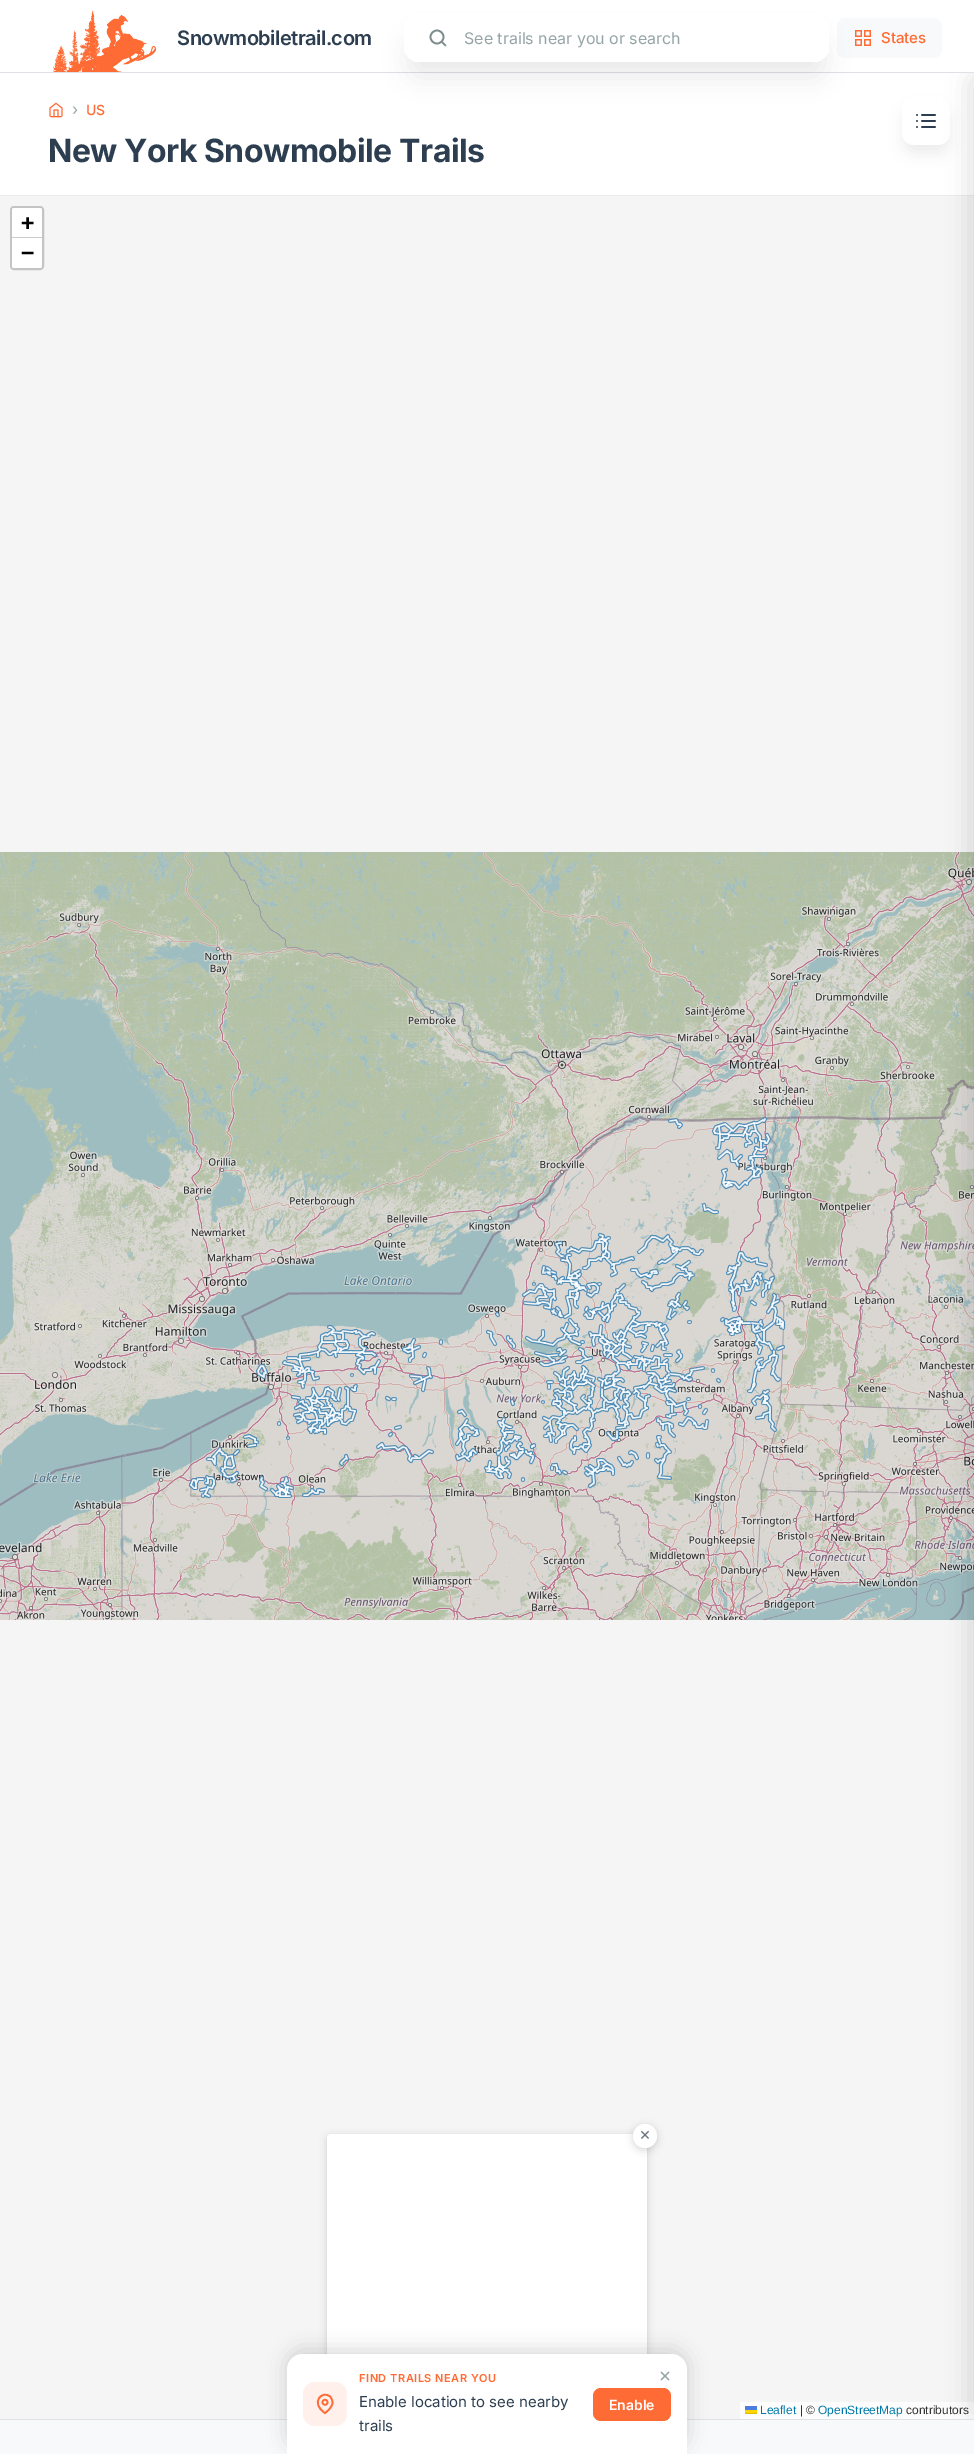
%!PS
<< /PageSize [974 2454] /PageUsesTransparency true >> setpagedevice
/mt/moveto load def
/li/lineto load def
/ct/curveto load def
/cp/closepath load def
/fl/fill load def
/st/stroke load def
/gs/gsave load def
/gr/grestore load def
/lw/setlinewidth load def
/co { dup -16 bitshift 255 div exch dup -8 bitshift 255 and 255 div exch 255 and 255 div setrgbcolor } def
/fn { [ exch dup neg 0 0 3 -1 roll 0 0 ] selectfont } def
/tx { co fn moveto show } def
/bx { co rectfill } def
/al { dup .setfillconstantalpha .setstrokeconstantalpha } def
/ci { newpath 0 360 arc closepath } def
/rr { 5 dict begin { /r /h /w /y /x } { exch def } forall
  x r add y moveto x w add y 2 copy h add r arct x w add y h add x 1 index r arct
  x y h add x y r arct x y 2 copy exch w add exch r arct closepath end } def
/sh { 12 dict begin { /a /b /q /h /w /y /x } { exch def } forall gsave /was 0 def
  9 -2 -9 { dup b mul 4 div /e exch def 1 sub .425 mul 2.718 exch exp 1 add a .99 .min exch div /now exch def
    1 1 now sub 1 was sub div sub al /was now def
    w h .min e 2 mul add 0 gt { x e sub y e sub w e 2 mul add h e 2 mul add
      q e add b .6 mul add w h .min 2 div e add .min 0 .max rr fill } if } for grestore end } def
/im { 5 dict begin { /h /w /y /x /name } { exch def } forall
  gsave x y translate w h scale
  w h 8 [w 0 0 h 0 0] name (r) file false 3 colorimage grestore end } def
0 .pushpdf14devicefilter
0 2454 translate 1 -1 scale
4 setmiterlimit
0 0 974 2454 16#FFFFFF bx
0 195 974 1 16#EBEBEB bx
gs
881 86 mt 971 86 li 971 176 li 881 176 li cp 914 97 mt 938 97 li 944.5 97 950 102.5 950 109 ct 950 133 li 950 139.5 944.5 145 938 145 ct 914 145 li 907.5 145 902 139.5 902 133 ct 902 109 li 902 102.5 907.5 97 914 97 ct cp eoclip newpath
16#000000 co
905 110 42 42 9 7.5 .08 sh
gr
0.95 al
16#FFFFFF co
902 97 48 48 12 rr fl
1 al
(media/4.raw) 916 114 20 14 im
0 196 974 2223 16#F5F5F5 bx
740 2402 234 17 16#FDFDFD bx
(media/9.raw) 795 852 179 256 im
(media/14.raw) 795 1108 179 256 im
(media/19.raw) 795 1364 179 256 im
0 2420 974 34 16#F8F9FA bx
0 2419 974 1 16#DEE2E6 bx
gs
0 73 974 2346 rectclip
16#000000 co
970 73 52 2346 12 12 .12 sh
gr
0 72 974 1 16#DEE2E6 bx
(media/1.raw) 53 10 104 62 im
16#F8F9FA co
837 18 105 40 8 rr fl
(media/2.raw) 855 30 16 16 im
16#000000 co
409 39 415 38 11 12.5 .08 sh
gs 404 14 425 48 16 rr clip newpath
<< /ShadingType 2 /ColorSpace /DeviceRGB /Coords [617 62 617 -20] /Extend [true true] /Function << /FunctionType 3 /Domain [0 1] /Functions [<< /FunctionType 2 /Domain [0 1] /C0 [1 1 1] /C1 [1 1 1] /N 1 >> << /FunctionType 2 /Domain [0 1] /C0 [.988 .988 .988] /C1 [.988 .988 .988] /N 1 >> << /FunctionType 2 /Domain [0 1] /C0 [1 1 1] /C1 [1 1 1] /N 1 >> << /FunctionType 2 /Domain [0 1] /C0 [.988 .988 .988] /C1 [.988 .988 .988] /N 1 >>] /Bounds [.49 .5 .99] /Encode [0 1 0 1 0 1 0 1] >> >> shfill gr
0.98 al
16#FFFFFF co
404 14 425 48 16 rr fl
1 al
16#7F8C8D co
1.7 lw
437 37 6.5 ci st
1 setlinecap
1 setlinejoin
445.5 45.5 mt 442 42 li st
(media/3.raw) 49 102 14 16 im
16#C4C4C4 co
2 lw
0 setlinecap
0 setlinejoin
11 207 32 62 3 rr st
16#FFFFFF co
14 208 mt 40 208 li 41 208 42 209 42 210 ct 42 238 li 12 238 li 12 210 li 12 209 13 208 14 208 ct cp fl
12 237 30 1 16#CCCCCC bx
16#FFFFFF co
12 238 mt 42 238 li 42 266 li 42 267 41 268 40 268 ct 14 268 li 13 268 12 267 12 266 ct cp fl
745 2406 12 4 16#4C7BE1 bx
745 2410 12 3 16#FFD500 bx
745 2413 12 1 16#E0BC00 bx
(media/5.raw) 0 852 27 256 im
(media/6.raw) 27 852 256 256 im
(media/7.raw) 283 852 256 256 im
(media/8.raw) 539 852 256 256 im
(media/10.raw) 0 1108 27 256 im
(media/11.raw) 27 1108 256 256 im
(media/12.raw) 283 1108 256 256 im
(media/13.raw) 539 1108 256 256 im
(media/15.raw) 0 1364 27 256 im
(media/16.raw) 27 1364 256 256 im
(media/17.raw) 283 1364 256 256 im
(media/18.raw) 539 1364 256 256 im
(media/20.raw) 188 1116 598 383 im
16#000000 co
327 2136 320 250 4 4 .15 sh
16#FFFFFF co
327 2134 320 250 4 rr fl
16#000000 co
633 2126 24 24 12 4 .15 sh
16#FFFFFF co
645 2136 12 ci fl
16#000000 co
287 2350 400 100 16 10 .15 sh
16#FFFFFF co
303 2354 mt 671 2354 li 680 2354 687 2361 687 2370 ct 687 2454 li 287 2454 li 287 2370 li 287 2361 294 2354 303 2354 ct cp fl
16#FFF0EB co
303 2382 44 44 12 rr fl
16#FF6B35 co
1.7 lw
332.5 2402.5 mt 332.5 2408 325 2413 325 2413 ct 309.5 2403 322.5 2389 330.5 2397 ct 331.5 2398.5 332.5 2400.5 332.5 2402.5 ct cp st
325 2402.3 2.5 ci st
593 2388 78 33 8 rr fl
16#95A5A6 co
1.3 lw
669 2372 mt 661 2380 li 661 2372 mt 669 2380 li st
/Inter-SemiBold 20 fn
16#2C3E50 co
177 45 mt -.5 0 (Snowmobiletrail.com) ashow
(See trails near you or search) 464 44 /Inter-Regular 16 16#95A5A6 tx
(States) 881 43 /Inter-Medium 15 16#FF6B35 tx
(›) 72 115 /Inter-Regular 16 16#95A5A6 tx
(US) 86 115 /Inter-Medium 14 16#FF6B35 tx
/Inter-Bold 32 fn
16#2C3E50 co
48 162 mt -.5 0 (New York Snowmobile Trails) ashow
(+) 21 230 /DejaVuSansMono-Bold 22 16#000000 tx
(−) 21 260 /DejaVuSansMono-Bold 22 16#000000 tx
(Leaflet) 760 2414 /LiberationSans-Regular 12 16#0078A8 tx
(| ©) 800 2414 /LiberationSans-Regular 12 16#333333 tx
(OpenStreetMap) 818 2414 /LiberationSans-Regular 12 16#0078A8 tx
(contributors) 906 2414 /LiberationSans-Regular 12 16#333333 tx
(×) 639 2140 /Inter-Regular 18 16#6B7280 tx
/Inter-SemiBold 11 fn
16#FF6B35 co
359 2382 mt .5 0 (FIND TRAILS NEAR YOU) ashow
(Enable location to see nearby) 359 2407 /Inter-Regular 15 16#2C3E50 tx
(trails) 359 2431 /Inter-Regular 15 16#2C3E50 tx
(Enable) 609 2410 /Inter-SemiBold 14 16#FFFFFF tx
.poppdf14devicefilter showpage
